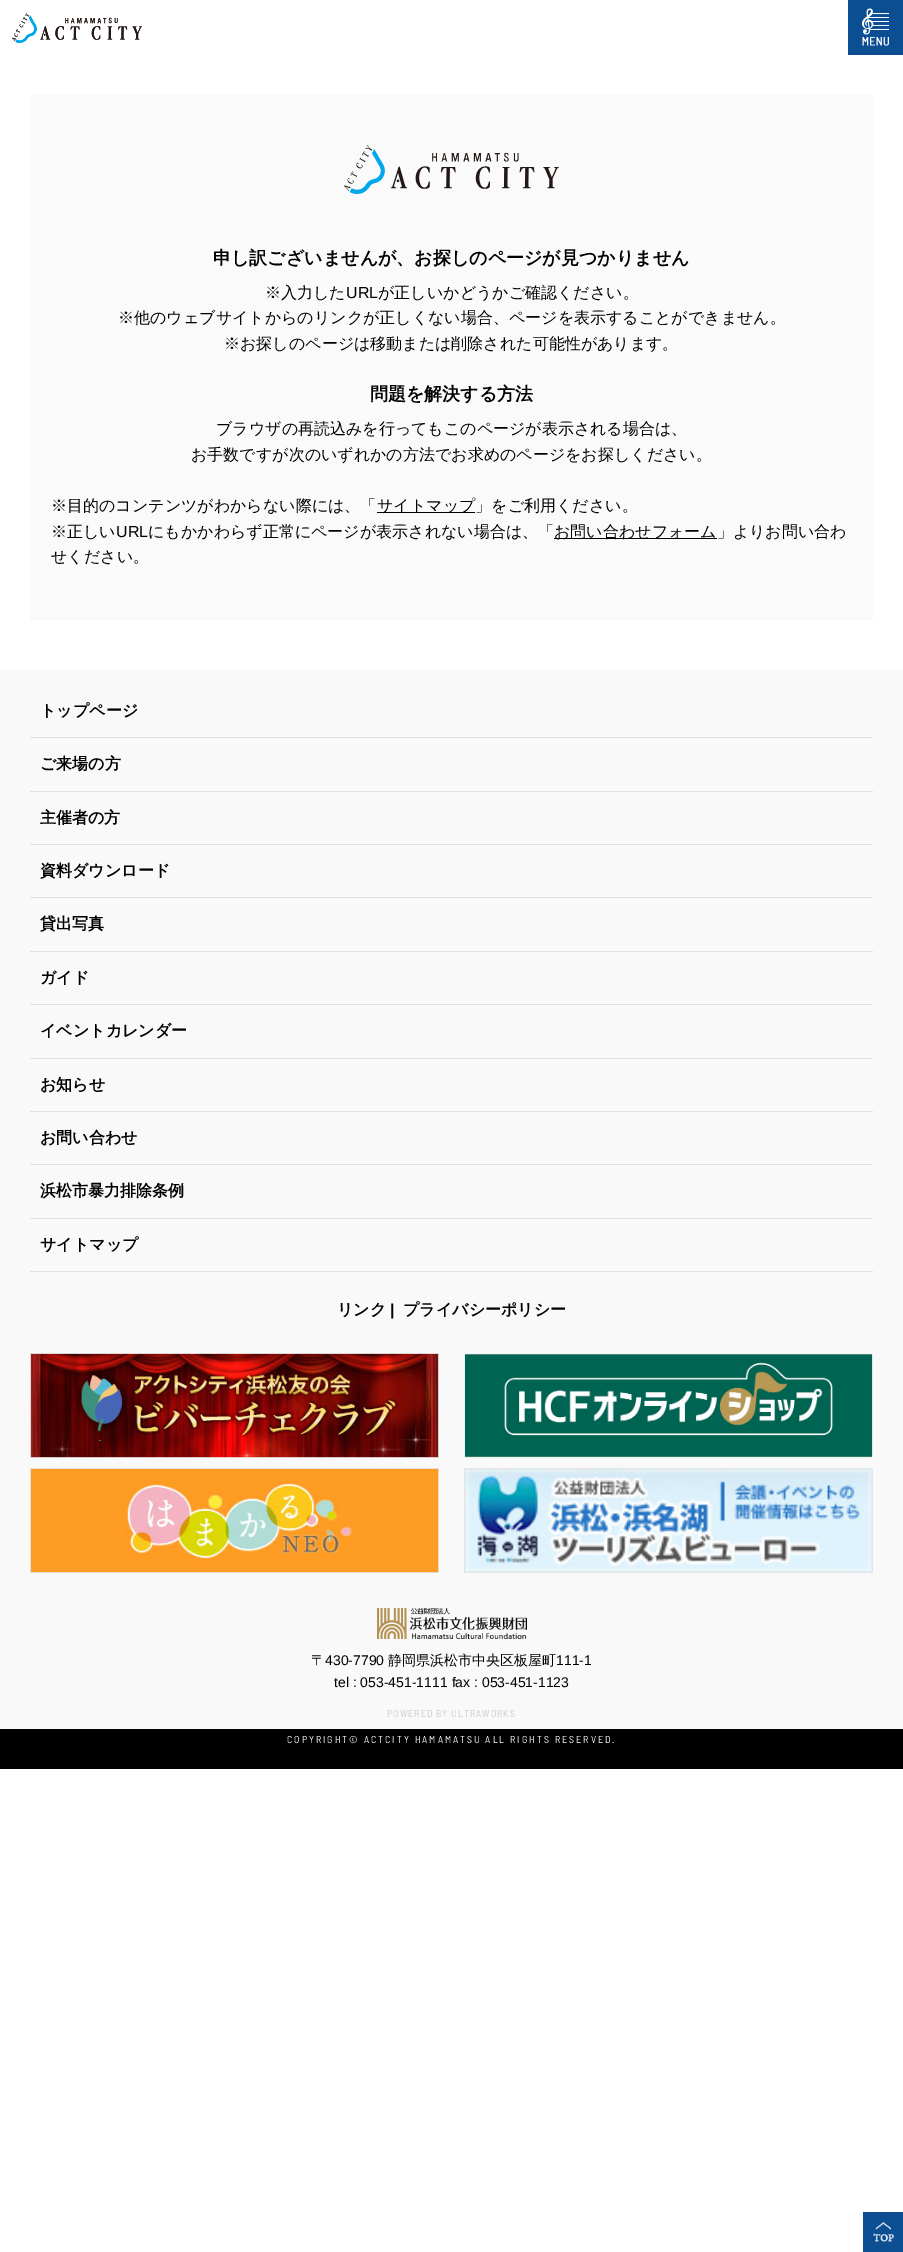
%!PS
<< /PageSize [903 2252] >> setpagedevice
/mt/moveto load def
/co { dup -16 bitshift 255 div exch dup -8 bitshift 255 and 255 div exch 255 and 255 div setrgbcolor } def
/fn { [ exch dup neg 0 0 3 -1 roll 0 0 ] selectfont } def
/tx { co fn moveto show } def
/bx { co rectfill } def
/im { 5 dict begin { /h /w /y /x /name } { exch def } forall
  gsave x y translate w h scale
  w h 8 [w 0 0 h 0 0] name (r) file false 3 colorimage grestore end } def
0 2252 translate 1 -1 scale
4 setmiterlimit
0 0 903 2252 16#FFFFFF bx
(media/1.raw) 12 13 130 30 im
(media/2.raw) 848 0 55 55 im
(media/3.raw) 12 13 130 30 im
30 95 843 525 16#FAFAFA bx
(media/4.raw) 344 145 215 49 im
377 512 98 1 16#000000 bx
554 538 163 1 16#000000 bx
0 670 903 1059 16#F9F9F9 bx
30 737 843 1 16#E2E2E2 bx
30 791 843 1 16#E2E2E2 bx
30 844 843 1 16#E2E2E2 bx
30 897 843 1 16#E2E2E2 bx
30 951 843 1 16#E2E2E2 bx
30 1004 843 1 16#E2E2E2 bx
30 1058 843 1 16#E2E2E2 bx
30 1271 843 1 16#E2E2E2 bx
30 1111 843 1 16#E2E2E2 bx
30 1164 843 1 16#E2E2E2 bx
30 1218 843 1 16#E2E2E2 bx
(media/5.raw) 30 1353 409 105 im
(media/6.raw) 464 1353 409 105 im
(media/7.raw) 30 1468 409 105 im
(media/8.raw) 464 1468 409 105 im
(media/9.raw) 377 1608 150 31 im
(media/10.raw) 863 2212 40 40 im
0 1729 903 40 16#000000 bx
(申し訳ございませんが、お探しのページが見つかりません) 213 264 /WenQuanYiZenHei-Bold 18 16#000000 tx
(※入力した) 265 298 /WenQuanYiZenHei-Medium 16 16#000000 tx
(URL) 346 298 /LiberationSans-Regular 16 16#000000 tx
(が正しいかどうかご確認ください。) 378 298 /WenQuanYiZenHei-Medium 16 16#000000 tx
(※他のウェブサイトからのリンクが正しくない場合、ページを表示することができません。) 118 323 /WenQuanYiZenHei-Medium 16 16#000000 tx
(※お探しのページは移動または削除された可能性があります。) 224 349 /WenQuanYiZenHei-Medium 16 16#000000 tx
(問題を解決する方法) 370 400 /WenQuanYiZenHei-Bold 18 16#000000 tx
(ブラウザの再読込みを行ってもこのページが表示される場合は、) 216 434 /WenQuanYiZenHei-Medium 16 16#000000 tx
(お手数ですが次のいずれかの方法でお求めのページをお探しください。) 191 460 /WenQuanYiZenHei-Medium 16 16#000000 tx
(※目的のコンテンツがわからない際には、「) 51 511 /WenQuanYiZenHei-Medium 16 16#000000 tx
(サイトマップ」をご利用ください。) 377 511 /WenQuanYiZenHei-Medium 16 16#000000 tx
(※正しい) 51 537 /WenQuanYiZenHei-Medium 16 16#000000 tx
(URL) 116 537 /LiberationSans-Regular 16 16#000000 tx
(にもかかわらず正常にページが表示されない場合は、「) 148 537 /WenQuanYiZenHei-Medium 16 16#000000 tx
(お問い合わせフォーム」よりお問い合わ) 554 537 /WenQuanYiZenHei-Medium 16 16#000000 tx
(せください。) 51 562 /WenQuanYiZenHei-Medium 16 16#000000 tx
(トップページ) 40 716 /WenQuanYiZenHei-Bold 16 16#000000 tx
(ご来場の方) 40 769 /WenQuanYiZenHei-Bold 16 16#000000 tx
(主催者の方) 40 823 /WenQuanYiZenHei-Bold 16 16#000000 tx
(資料ダウンロード) 40 876 /WenQuanYiZenHei-Bold 16 16#000000 tx
(貸出写真) 40 929 /WenQuanYiZenHei-Bold 16 16#000000 tx
(ガイド) 40 983 /WenQuanYiZenHei-Bold 16 16#000000 tx
(イベントカレンダー) 40 1036 /WenQuanYiZenHei-Bold 16 16#000000 tx
(お知らせ) 40 1090 /WenQuanYiZenHei-Bold 16 16#000000 tx
(お問い合わせ) 40 1143 /WenQuanYiZenHei-Bold 16 16#000000 tx
(浜松市暴力排除条例) 40 1196 /WenQuanYiZenHei-Bold 16 16#000000 tx
(サイトマップ) 40 1250 /WenQuanYiZenHei-Bold 16 16#000000 tx
(リンク) 337 1315 /WenQuanYiZenHei-Bold 16 16#000000 tx
(|) 390 1315 /LiberationSans-Bold 16 16#000000 tx
(プライバシーポリシー) 403 1315 /WenQuanYiZenHei-Bold 16 16#000000 tx
(〒) 311 1665 /WenQuanYiZenHei-Medium 14 16#000000 tx
(430-7790) 325 1665 /LiberationSans-Regular 14 16#000000 tx
(静岡県浜松市中央区板屋町) 388 1665 /WenQuanYiZenHei-Medium 14 16#000000 tx
(111-1) 556 1665 /LiberationSans-Regular 14 16#000000 tx
(tel : 053-451-1111 fax : 053-451-1123) 334 1687 /LiberationSans-Regular 14 16#000000 tx
/BarlowSemiCondensed-Regular 10 fn
16#CCCCCC co
387 1717 mt 1 0 (POWERED BY ULTRAWORKS) ashow
16#FFFFFF co
287 1743 mt 2 0 (COPYRIGHT© ACTCITY HAMAMATSU ALL RIGHTS RESERVED.) ashow
showpage
